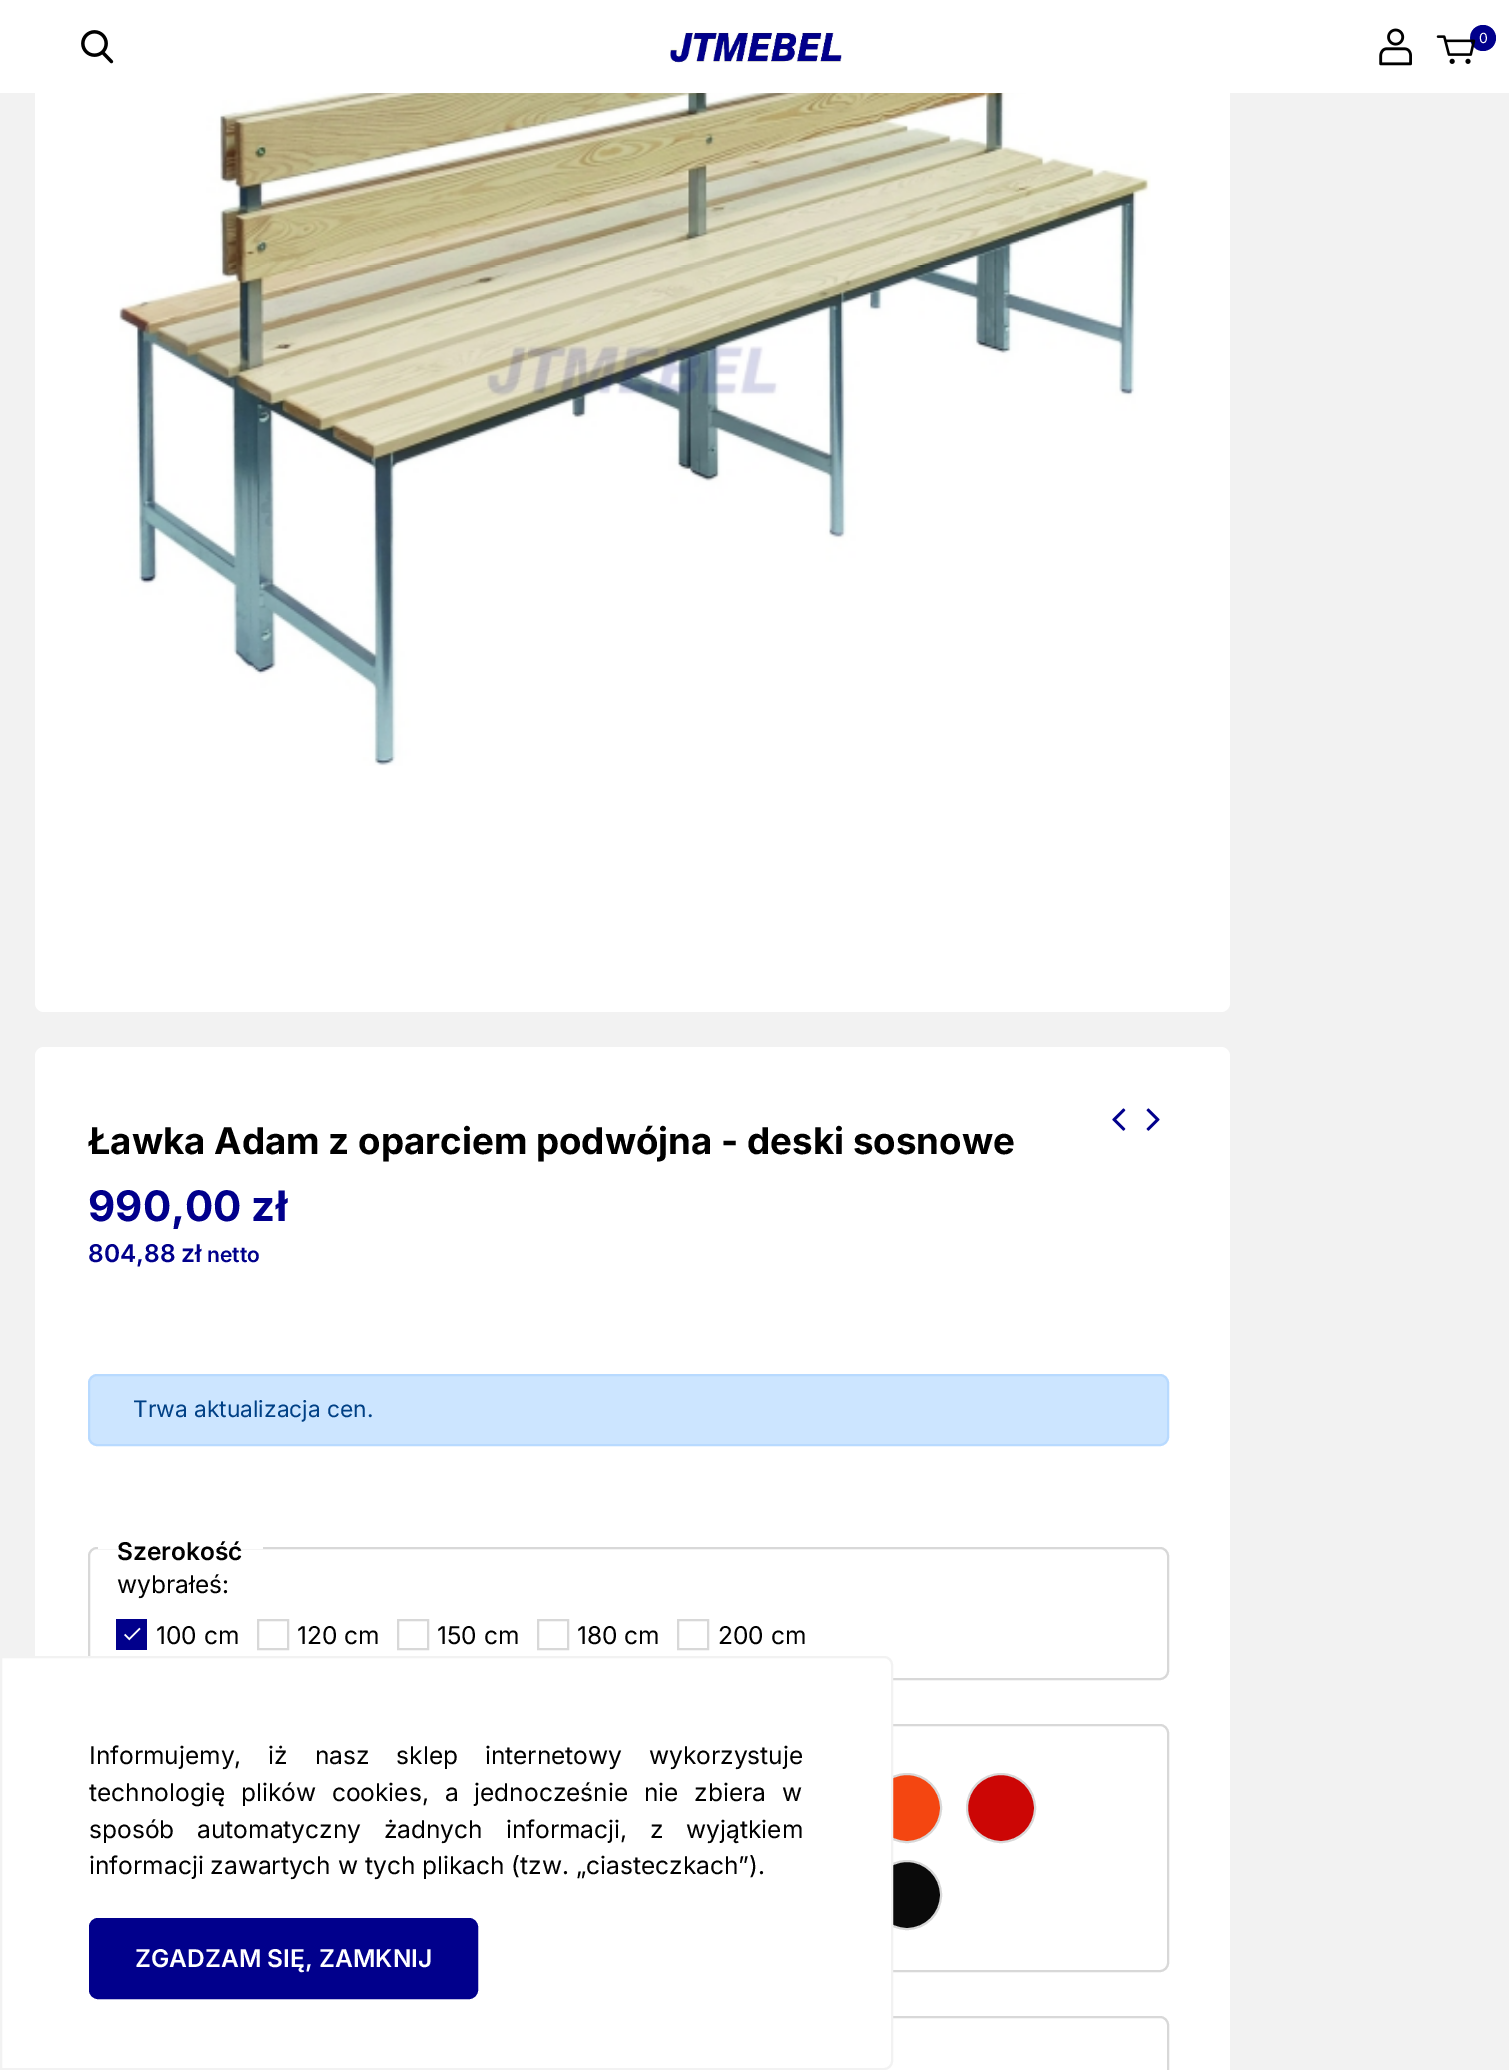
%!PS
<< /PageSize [1509 2070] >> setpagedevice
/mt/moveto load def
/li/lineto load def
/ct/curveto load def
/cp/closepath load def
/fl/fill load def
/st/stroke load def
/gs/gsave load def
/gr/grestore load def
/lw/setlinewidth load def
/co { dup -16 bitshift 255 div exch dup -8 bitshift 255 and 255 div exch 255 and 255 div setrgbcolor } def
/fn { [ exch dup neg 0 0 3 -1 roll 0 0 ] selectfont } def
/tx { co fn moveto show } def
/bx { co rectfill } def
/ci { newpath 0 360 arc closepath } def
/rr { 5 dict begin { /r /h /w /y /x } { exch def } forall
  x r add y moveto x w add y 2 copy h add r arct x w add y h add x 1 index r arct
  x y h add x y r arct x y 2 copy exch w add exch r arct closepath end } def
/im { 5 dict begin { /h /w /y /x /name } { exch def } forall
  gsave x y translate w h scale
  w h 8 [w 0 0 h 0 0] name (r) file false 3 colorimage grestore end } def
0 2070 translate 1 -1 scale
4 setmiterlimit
0 0 1509 2070 16#F2F2F2 bx
16#FFFFFF co
35 -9 1195 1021 9 rr fl
0 0 1509 93 16#FFFFFF bx
(media/1.raw) 81 30 33 34 im
(media/2.raw) 670 32 172 31 im
(media/3.raw) 1379 28 33 38 im
16#01008C co
1483 38 13 ci fl
(media/4.raw) 1436 35 40 29 im
(media/5.raw) 119 93 1032 673 im
16#FFFFFF co
35 1047 1195 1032 9 rr fl
(media/6.raw) 1112 1108 14 23 im
(media/7.raw) 1146 1108 14 23 im
16#CCE5FF co
89 1375 1079 70 8 rr gs fl gr
16#B8DAFF co
2 lw
st
16#D8D8D8 co
89 1548 1079 131 8 rr st
98 1547 165 2 16#FFFFFF bx
116 1619 31 31 16#01008C bx
(media/8.raw) 124 1627 17 14 im
16#D8D8D8 co
258 1620 30 29 rectstroke
398 1620 30 29 rectstroke
538 1620 30 29 rectstroke
678 1620 30 29 rectstroke
89 1725 1079 246 8 rr st
16#F44611 co
907 1808 34 ci gs fl gr
16#D8D8D8 co
st
16#CC0605 co
1001 1808 34 ci gs fl gr
16#D8D8D8 co
st
16#0A0A0A co
907 1895 34 ci gs fl gr
16#D8D8D8 co
st
89 2017 1079 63 8 rr st
16#FFFFFF co
1 1657 mt 884 1657 li 888.5 1657 892 1660.5 892 1665 ct 892 2061 li 892 2065.5 888.5 2069 884 2069 ct 1 2069 li cp gs fl gr
16#F2F2F2 co
st
16#01008C co
90 1919 387 79 8 rr gs fl gr
st
(0) 1479 43 /Inter-Regular 14 16#FFFFFF tx
(Ławka Adam z oparciem podwójna - deski sosnowe) 88 1154 /Inter-Bold 36.75 16#000000 tx
(990,00 zł) 88 1221 /Inter-Bold 42 16#01008C tx
(804,88 zł) 88 1262 /Inter-SemiBold 24.5 16#01008C tx
(netto) 207 1262 /Inter-SemiBold 21 16#01008C tx
(Trwa aktualizacja cen.) 133 1417 /Inter-Regular 22.75 16#004085 tx
(Szerokość) 117 1560 /Inter-SemiBold 24.5 16#000000 tx
(wybrałeś:) 117 1593 /Inter-Regular 24.5 16#000000 tx
(100 cm) 156 1644 /Inter-Regular 24.5 16#000000 tx
(120 cm) 297 1644 /Inter-Regular 24.5 16#000000 tx
(150 cm) 437 1644 /Inter-Regular 24.5 16#000000 tx
(180 cm) 577 1644 /Inter-Regular 24.5 16#000000 tx
(200 cm) 718 1644 /Inter-Regular 24.5 16#000000 tx
89 1764 mt 20 0 32 (Informujemy, iż nasz sklep internetowy wykorzystuje) widthshow
89 1801 mt 9 0 32 (technologię plików cookies, a jednocześnie nie zbiera w) widthshow
89 1838 mt 16 0 32 (sposób automatyczny żadnych informacji, z wyjątkiem) widthshow
(informacji zawartych w tych plikach \(tzw. „ciasteczkach”\).) 89 1874 /Inter-Regular 24.5 16#000000 tx
(ZGADZAM SIĘ, ZAMKNIJ) 135 1967 /Inter-SemiBold 24.5 16#FFFFFF tx
showpage
